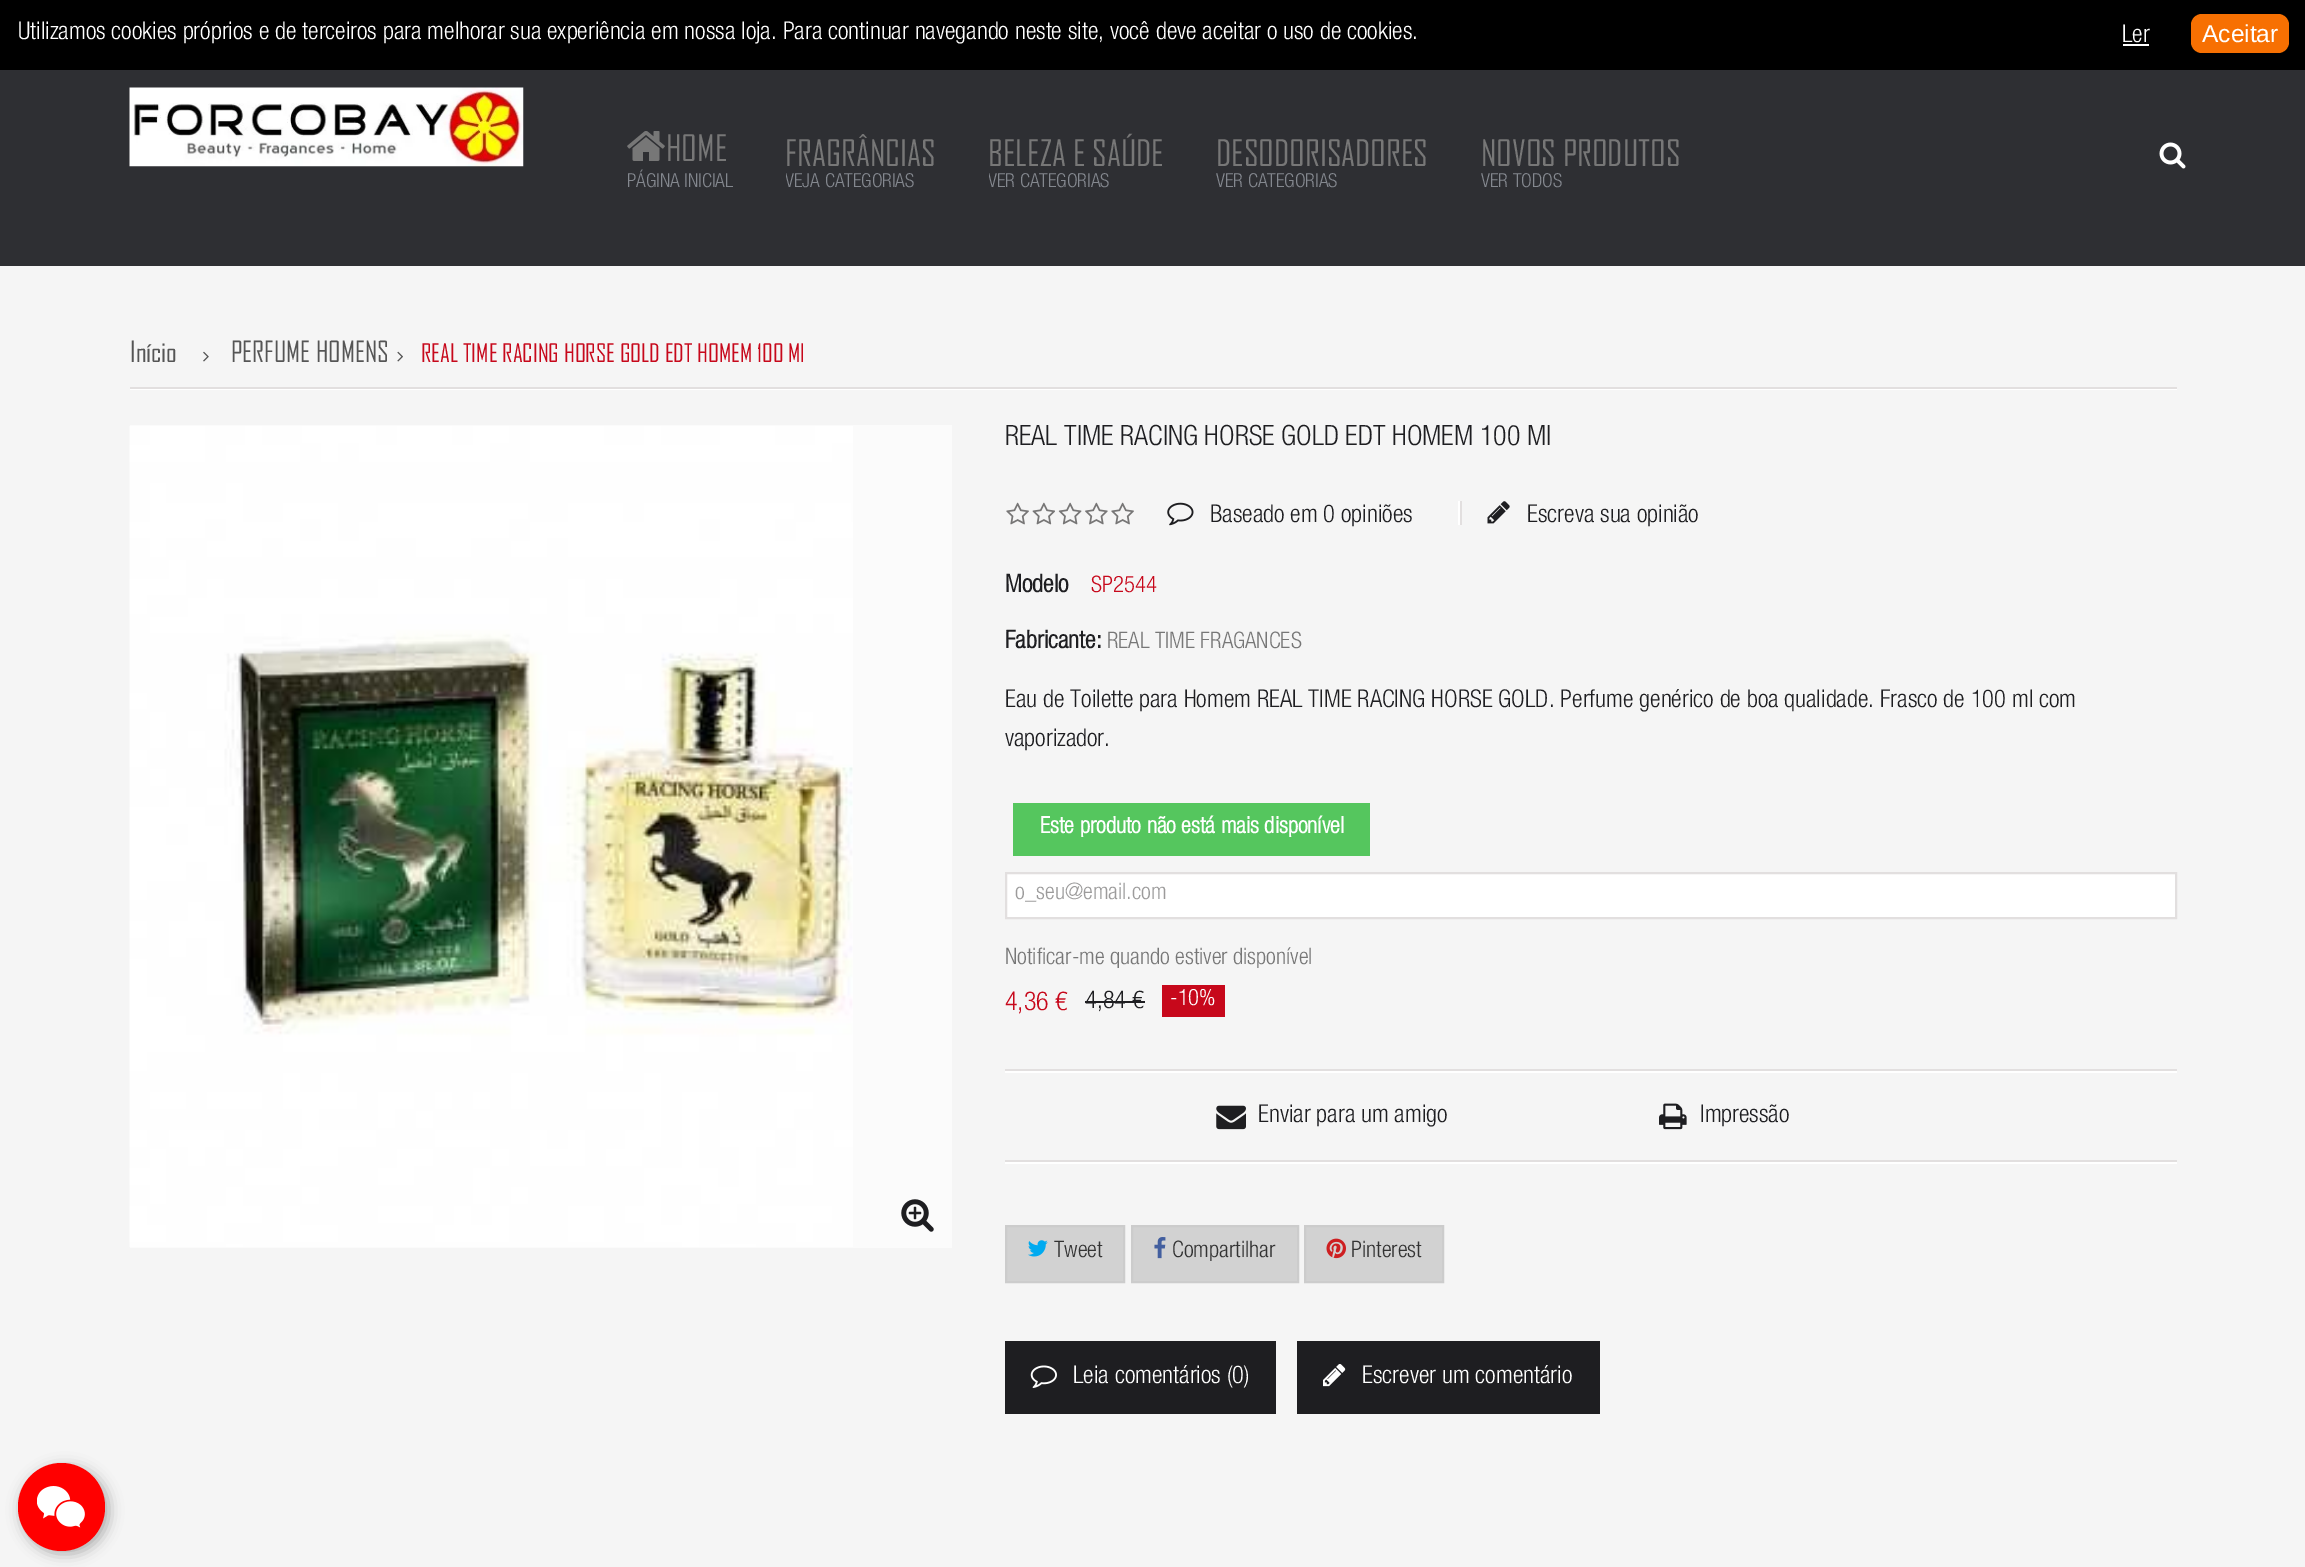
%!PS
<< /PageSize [2305 1567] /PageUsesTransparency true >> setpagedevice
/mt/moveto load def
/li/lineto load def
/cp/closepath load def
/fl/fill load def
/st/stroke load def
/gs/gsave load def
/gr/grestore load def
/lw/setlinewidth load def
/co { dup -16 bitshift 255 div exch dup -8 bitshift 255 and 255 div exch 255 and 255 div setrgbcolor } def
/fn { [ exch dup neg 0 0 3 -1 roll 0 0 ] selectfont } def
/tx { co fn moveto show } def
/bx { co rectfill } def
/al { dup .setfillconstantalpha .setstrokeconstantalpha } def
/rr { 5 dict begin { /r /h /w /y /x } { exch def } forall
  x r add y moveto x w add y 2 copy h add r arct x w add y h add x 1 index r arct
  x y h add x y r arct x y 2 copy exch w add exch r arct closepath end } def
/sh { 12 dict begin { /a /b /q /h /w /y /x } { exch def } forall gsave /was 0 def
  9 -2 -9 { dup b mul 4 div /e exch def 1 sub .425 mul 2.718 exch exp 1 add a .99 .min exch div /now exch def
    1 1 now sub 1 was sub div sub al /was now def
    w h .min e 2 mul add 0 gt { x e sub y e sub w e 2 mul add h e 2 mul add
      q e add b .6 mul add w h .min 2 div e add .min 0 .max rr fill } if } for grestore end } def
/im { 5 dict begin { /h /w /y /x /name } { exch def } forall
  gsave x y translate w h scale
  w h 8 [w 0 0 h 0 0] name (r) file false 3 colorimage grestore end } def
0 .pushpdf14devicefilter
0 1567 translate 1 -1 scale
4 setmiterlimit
0 0 2305 1567 16#F5F5F5 bx
0 0 2305 70 16#000000 bx
2123 44 26 2 16#FFFFFF bx
16#F77002 co
2191 14 98 39 11 rr fl
0 70 2305 196 16#2E2F33 bx
(media/1.raw) 129 87 395 80 im
(media/2.raw) 2159 142 27 27 im
(media/3.raw) 627 131 38 30 im
130 389 2047 1 16#FFFFFF bx
130 387 2047 2 16#E2DFDF bx
(media/4.raw) 203 351 6 11 im
(media/5.raw) 397 351 6 11 im
130 425 822 823 16#FBFBFB bx
(media/6.raw) 129 426 724 821 im
(media/7.raw) 901 1199 33 33 im
(media/8.raw) 1006 502 23 23 im
(media/9.raw) 1032 502 23 23 im
(media/10.raw) 1058 502 24 23 im
(media/11.raw) 1085 502 23 23 im
(media/8.raw) 1111 502 23 23 im
(media/12.raw) 1167 502 27 24 im
1458 501 2 24 16#FFFFFF bx
1460 501 2 24 16#E2DFDF bx
(media/13.raw) 1487 501 23 23 im
1013 803 357 53 16#55C65E bx
16#FFFFFF co
1006 873 mt 2176 873 li 2176 918 li 1006 918 li cp gs fl gr
16#E2DFDF co
2 lw
st
1085 1001 60 2 16#1E1E21 bx
1162 985 63 32 16#C7081B bx
1005 1069 1172 2 16#E2DFDF bx
1005 1071 1172 2 16#FFFFFF bx
1005 1162 1172 2 16#FFFFFF bx
1005 1160 1172 2 16#E2DFDF bx
(media/14.raw) 1216 1105 30 25 im
(media/15.raw) 1659 1103 28 27 im
16#D2D2D2 co
1006 1226 mt 1124 1226 li 1124 1282 li 1006 1282 li cp gs fl gr
16#CCCCCC co
st
(media/16.raw) 1028 1240 20 17 im
16#D2D2D2 co
1132 1226 mt 1298 1226 li 1298 1282 li 1132 1282 li cp gs fl gr
16#CCCCCC co
st
(media/17.raw) 1154 1237 12 22 im
16#D2D2D2 co
1305 1226 mt 1443 1226 li 1443 1282 li 1305 1282 li cp gs fl gr
16#CCCCCC co
st
(media/18.raw) 1326 1238 20 21 im
1005 1341 271 73 16#1E1E21 bx
(media/19.raw) 1030 1365 27 23 im
1297 1341 303 73 16#1E1E21 bx
(media/20.raw) 1323 1364 23 23 im
16#AAAAAA co
21 1467 88 87 43.5 7 1 sh
16#FF0000 co
18 1463 87 88 43.5 rr fl
(media/21.raw) 37 1486 48 42 im
(Utilizamos cookies próprios e de terceiros para melhorar sua experiência em nossa loja. Para continuar navegando neste site, você deve aceitar o uso de cookies.) 18 39 /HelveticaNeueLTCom-Light 24.5 16#FFFFFF tx
(Ler) 2122 42 /HelveticaNeueLTCom-Light 24.5 16#FFFFFF tx
(Aceitar) 2202 42 /LiberationSans-Regular 24.5 16#FFFFFF tx
(HOME) 666 161 /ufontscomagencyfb-Regular 35 16#777777 tx
(PÁGINA INICIAL) 627 187 /HelveticaNeueLTCom-Light 19.25 16#84888F tx
(FRAGRÂNCIAS) 785 166 /ufontscomagencyfb-Regular 35 16#777777 tx
gs
786 119 150 98 rectclip
(VEJA CATEGORIAS) 785 187 /HelveticaNeueLTCom-Light 19.25 16#84888F tx
gr
(BELEZA E SAÚDE) 988 166 /ufontscomagencyfb-Regular 35 16#777777 tx
gs
989 119 175 98 rectclip
(VER CATEGORIAS) 988 187 /HelveticaNeueLTCom-Light 19.25 16#84888F tx
gr
(DESODORISADORES) 1216 166 /ufontscomagencyfb-Regular 35 16#777777 tx
(VER CATEGORIAS) 1216 187 /HelveticaNeueLTCom-Light 19.25 16#84888F tx
(NOVOS PRODUTOS) 1481 166 /ufontscomagencyfb-Regular 35 16#777777 tx
(VER TODOS) 1481 187 /HelveticaNeueLTCom-Light 19.25 16#84888F tx
(Início) 130 362 /ufontscomagencyfb-Regular 28 16#555555 tx
(PERFUME HOMENS) 231 362 /ufontscomagencyfb-Regular 28 16#555555 tx
(REAL TIME RACING HORSE GOLD EDT HOMEM 100 Ml) 421 362 /ufontscomagencyfb-Regular 24.5 16#C7081B tx
(REAL TIME RACING HORSE GOLD EDT HOMEM 100 Ml) 1005 445 /HelveticaNeueLTCom-Light 28 16#1E1E21 tx
(Baseado em 0 opiniões) 1210 522 /HelveticaNeueLTCom-Light 24.5 16#1E1E21 tx
(Escreva sua opinião) 1527 522 /HelveticaNeueLTCom-Light 24.5 16#1E1E21 tx
(Modelo) 1005 592 /HelveticaNeueLTCom-Bold 24.5 16#1E1E21 tx
(SP2544) 1091 592 /HelveticaNeueLTCom-Light 22.75 16#C7081B tx
(Fabricante:) 1005 648 /HelveticaNeueLTCom-Bold 24.5 16#1E1E21 tx
(REAL TIME FRAGANCES) 1107 648 /HelveticaNeueLTCom-Light 22.75 16#777777 tx
(Eau de Toilette para Homem REAL TIME RACING HORSE GOLD. Perfume genérico de boa qualidade. Frasco de 100 ml com) 1005 707 /HelveticaNeueLTCom-Light 24.5 16#1E1E21 tx
(vaporizador.) 1005 746 /HelveticaNeueLTCom-Light 24.5 16#1E1E21 tx
(Este produto não está mais disponível) 1040 833 /HelveticaNeueLTCom-Bold 22.75 16#FFFFFF tx
(o_seu@email.com) 1015 899 /HelveticaNeueLTCom-Light 22.75 16#9C9B9B tx
(Notificar-me quando estiver disponível) 1005 964 /HelveticaNeueLTCom-Light 22.75 16#777777 tx
(4,36 €) 1005 1010 /HelveticaNeueLTCom-Light 26 16#C7081B tx
(4,84 €) 1085 1008 /HelveticaNeueLTCom-Light 24.5 16#1E1E21 tx
(-10%) 1170 1005 /HelveticaNeueLTCom-Light 22.75 16#FFFFFF tx
(Enviar para um amigo) 1258 1122 /HelveticaNeueLTCom-Light 24.5 16#1E1E21 tx
(Impressão) 1700 1122 /HelveticaNeueLTCom-Light 24.5 16#1E1E21 tx
(Tweet) 1054 1257 /HelveticaNeueLTCom-Light 22.75 16#333333 tx
(Compartilhar) 1172 1257 /HelveticaNeueLTCom-Light 22.75 16#333333 tx
(Pinterest) 1351 1257 /HelveticaNeueLTCom-Light 22.75 16#333333 tx
(Leia comentários \(0\)) 1073 1383 /HelveticaNeueLTCom-Light 24.5 16#FFFFFF tx
(Escrever um comentário) 1362 1383 /HelveticaNeueLTCom-Light 24.5 16#FFFFFF tx
.poppdf14devicefilter showpage
